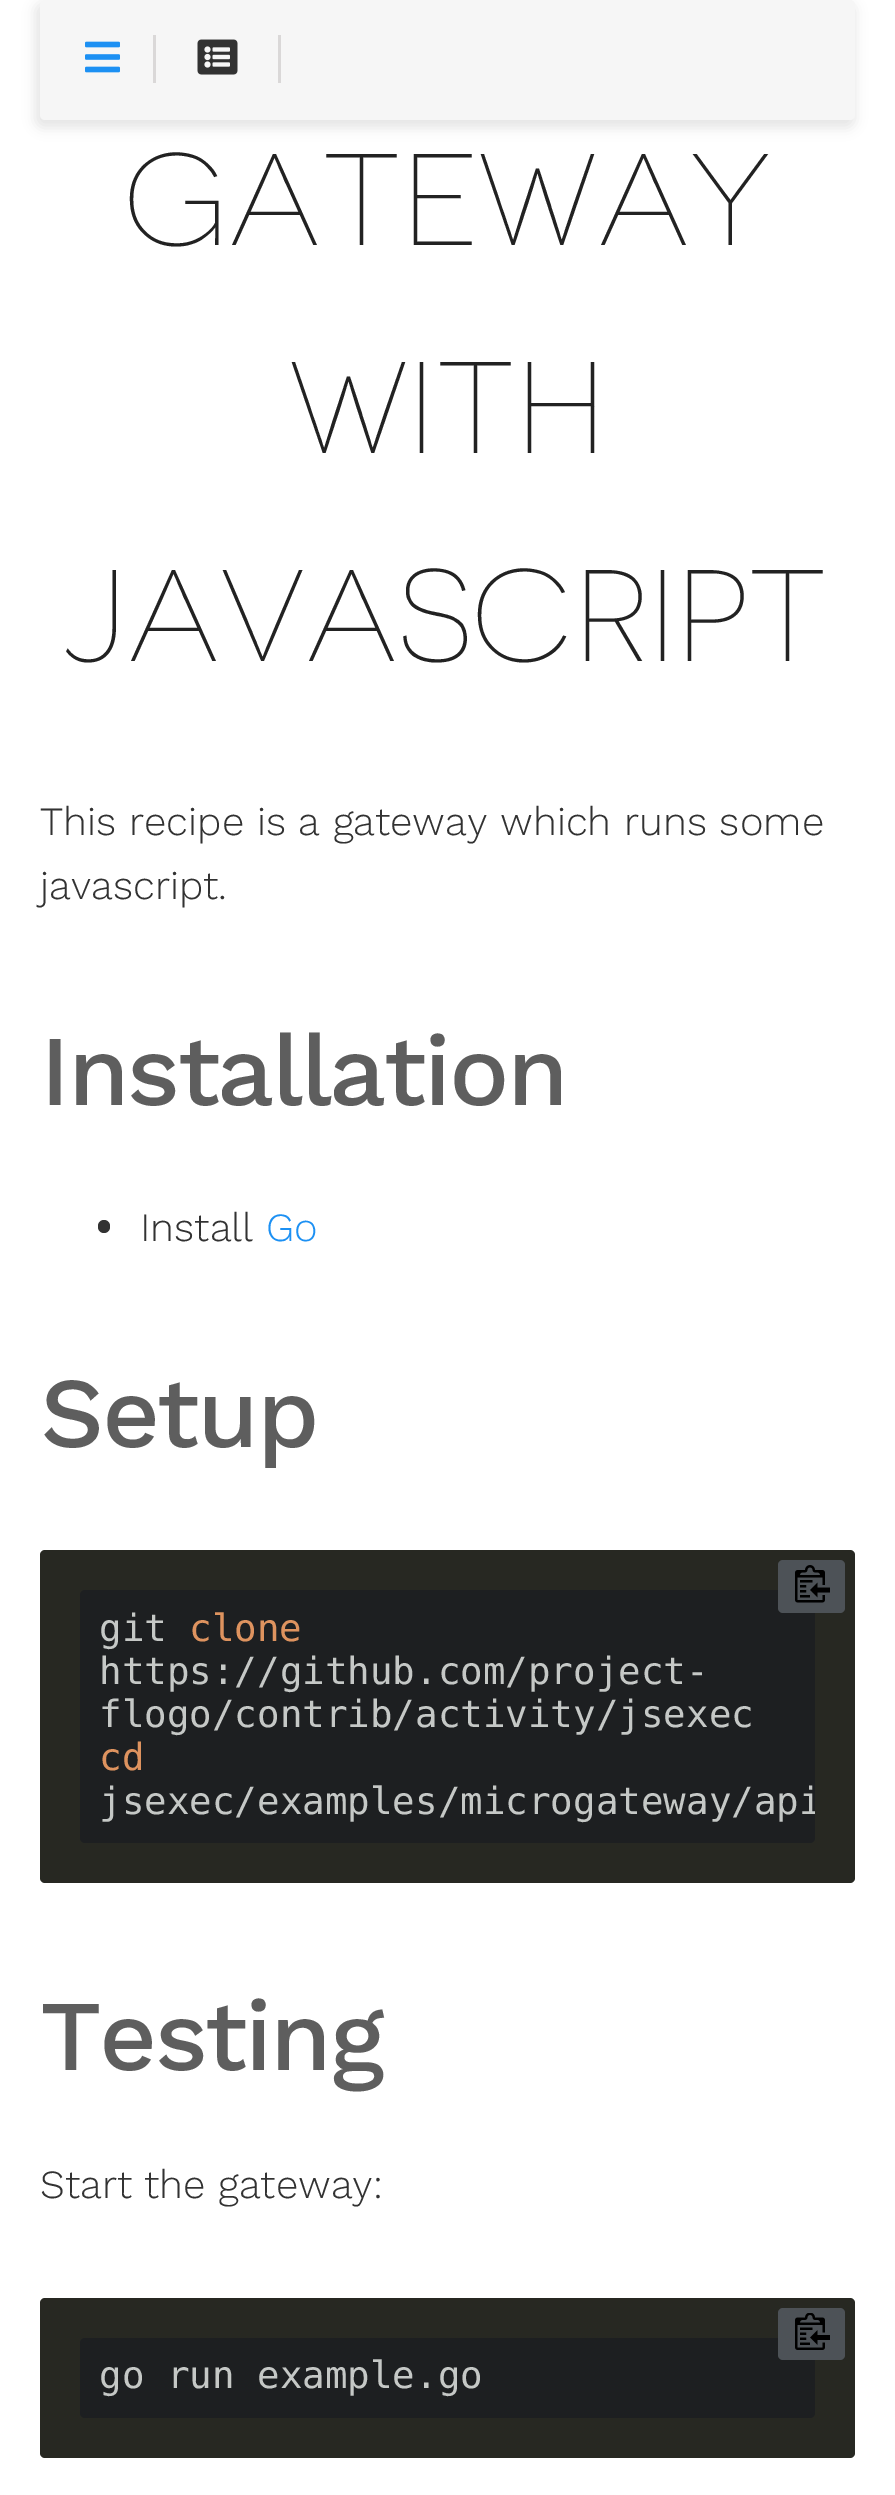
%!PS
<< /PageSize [895 2495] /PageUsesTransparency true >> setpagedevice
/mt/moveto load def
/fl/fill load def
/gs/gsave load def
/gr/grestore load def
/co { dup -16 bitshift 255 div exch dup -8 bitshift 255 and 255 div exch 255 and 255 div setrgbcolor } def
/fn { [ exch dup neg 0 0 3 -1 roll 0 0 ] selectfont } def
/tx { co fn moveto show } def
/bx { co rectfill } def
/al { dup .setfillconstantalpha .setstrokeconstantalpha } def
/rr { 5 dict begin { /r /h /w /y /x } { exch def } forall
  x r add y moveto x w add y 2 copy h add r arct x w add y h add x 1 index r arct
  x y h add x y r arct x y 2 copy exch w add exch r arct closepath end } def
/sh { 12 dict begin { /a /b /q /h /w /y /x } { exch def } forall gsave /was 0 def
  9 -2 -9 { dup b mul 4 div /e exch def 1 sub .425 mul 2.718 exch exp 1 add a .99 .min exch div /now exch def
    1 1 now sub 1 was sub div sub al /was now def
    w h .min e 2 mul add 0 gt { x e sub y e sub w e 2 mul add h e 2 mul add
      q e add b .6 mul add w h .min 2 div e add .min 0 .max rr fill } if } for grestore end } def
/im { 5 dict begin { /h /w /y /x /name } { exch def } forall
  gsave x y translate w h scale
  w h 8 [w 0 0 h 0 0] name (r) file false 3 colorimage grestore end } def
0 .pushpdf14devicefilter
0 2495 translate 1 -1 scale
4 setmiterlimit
0 0 895 2495 16#FFFFFF bx
16#000000 co
35 3 820 125 8 6 .1 sh
16#F6F6F6 co
40 0 815 120 5 rr fl
153 35 3 48 16#DAD8D8 bx
(media/1.raw) 85 41 35 32 im
278 35 3 48 16#DAD8D8 bx
(media/2.raw) 197 39 41 36 im
16#323232 co
98 1220 12 13 6 rr fl
16#272822 co
40 1550 815 333 5 rr fl
16#1D1F21 co
80 1590 735 253 5 rr fl
16#4D5257 co
778 1560 67 53 5 rr fl
(media/3.raw) 795 1565 35 38 im
16#272822 co
40 2298 815 160 5 rr fl
16#1D1F21 co
80 2338 735 80 5 rr fl
16#4D5257 co
778 2308 67 52 5 rr fl
(media/4.raw) 795 2313 35 37 im
(GATEWAY) 124 245 /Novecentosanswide-ExtraLight 130 16#222222 tx
(WITH) 289 453 /Novecentosanswide-ExtraLight 130 16#222222 tx
(JAVASCRIPT) 66 661 /Novecentosanswide-ExtraLight 130 16#222222 tx
(This recipe is a gateway which runs some) 40 835 /WorkSans-Light 40 16#323232 tx
(javascript.) 40 899 /WorkSans-Light 40 16#323232 tx
/WorkSans-Medium 100 fn
16#5E5E5E co
40 1105 mt -2.5 0 (Installation) ashow
(Install) 140 1241 /WorkSans-Light 40 16#323232 tx
(Go) 266 1241 /WorkSans-Light 40 16#1C90F3 tx
/WorkSans-Medium 100 fn
16#5E5E5E co
40 1447 mt -2.5 0 (Setup) ashow
(git) 99 1641 /DejaVuSansMono-Regular 37.5 16#C5C8C6 tx
(clone) 189 1641 /DejaVuSansMono-Regular 37.5 16#DE935F tx
(https://github.com/project-) 99 1684 /DejaVuSansMono-Regular 37.5 16#C5C8C6 tx
(flogo/contrib/activity/jsexec) 99 1727 /DejaVuSansMono-Regular 37.5 16#C5C8C6 tx
(cd) 99 1770 /DejaVuSansMono-Regular 37.5 16#DE935F tx
gs
80 1590 735 253 5 rr clip newpath
(jsexec/examples/microgateway/api) 99 1814 /DejaVuSansMono-Regular 37.5 16#C5C8C6 tx
gr
/WorkSans-Medium 100 fn
16#5E5E5E co
40 2070 mt -2.5 0 (Testing) ashow
(Start the gateway:) 40 2198 /WorkSans-Light 40 16#323232 tx
(go run example.go) 99 2388 /DejaVuSansMono-Regular 37.5 16#C5C8C6 tx
.poppdf14devicefilter showpage
